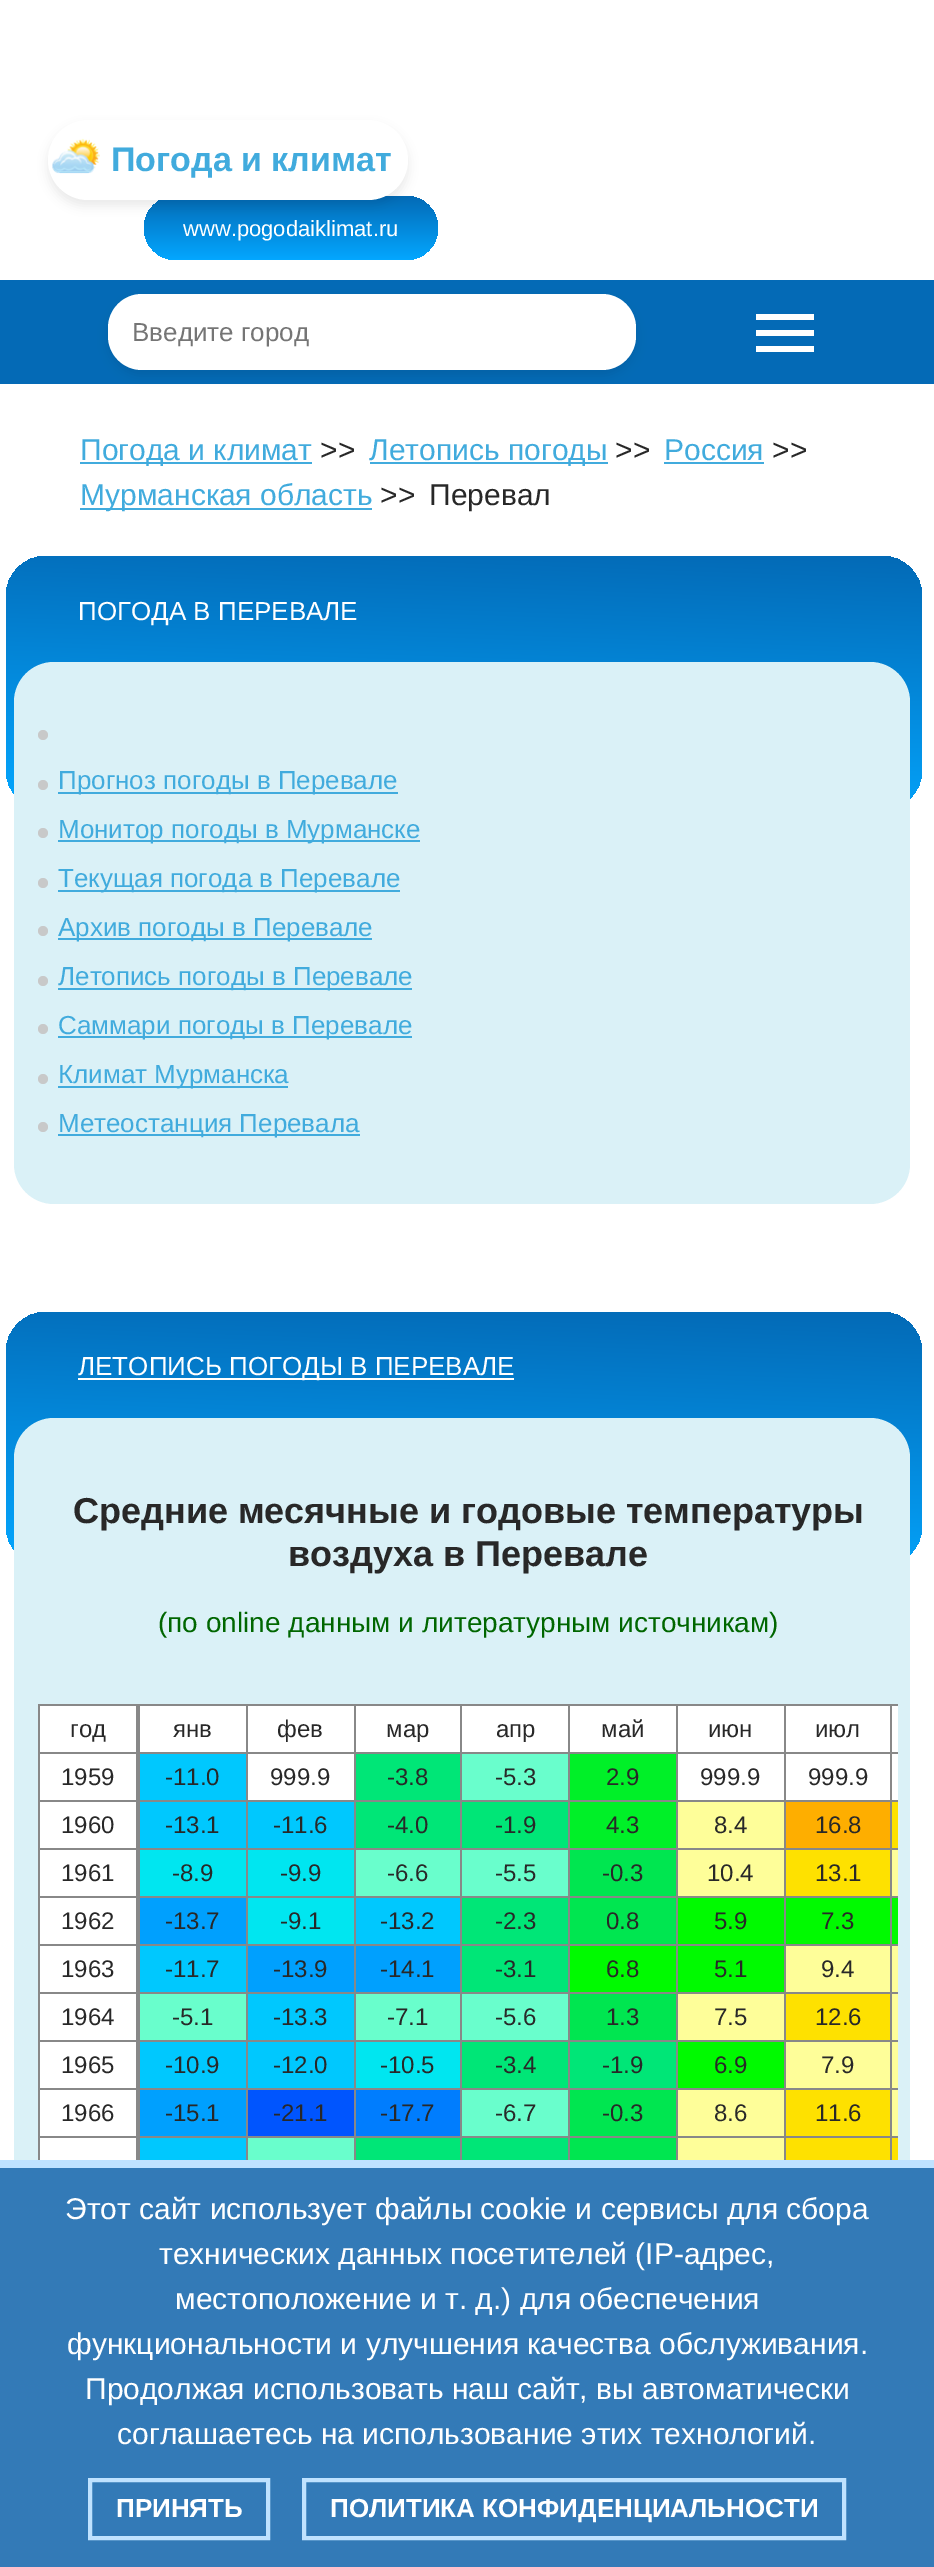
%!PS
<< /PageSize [934 2567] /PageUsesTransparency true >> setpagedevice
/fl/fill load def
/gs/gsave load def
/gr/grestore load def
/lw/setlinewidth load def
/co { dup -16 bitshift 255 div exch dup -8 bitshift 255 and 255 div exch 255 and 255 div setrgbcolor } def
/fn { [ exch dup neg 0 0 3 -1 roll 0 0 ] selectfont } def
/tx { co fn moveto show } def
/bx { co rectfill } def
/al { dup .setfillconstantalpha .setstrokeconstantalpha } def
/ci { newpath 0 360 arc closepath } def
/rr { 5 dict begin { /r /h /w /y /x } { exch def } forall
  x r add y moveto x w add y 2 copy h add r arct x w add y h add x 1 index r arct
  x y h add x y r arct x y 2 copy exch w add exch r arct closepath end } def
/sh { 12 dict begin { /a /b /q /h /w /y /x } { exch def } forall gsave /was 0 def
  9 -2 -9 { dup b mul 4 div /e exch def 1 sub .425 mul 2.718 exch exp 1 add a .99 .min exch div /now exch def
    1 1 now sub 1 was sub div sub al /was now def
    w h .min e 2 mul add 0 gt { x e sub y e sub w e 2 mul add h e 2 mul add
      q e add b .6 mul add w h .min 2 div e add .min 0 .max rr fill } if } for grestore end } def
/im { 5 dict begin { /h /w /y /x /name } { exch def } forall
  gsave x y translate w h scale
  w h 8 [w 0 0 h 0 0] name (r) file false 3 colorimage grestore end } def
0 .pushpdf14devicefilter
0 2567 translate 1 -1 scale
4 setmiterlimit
0 0 934 2567 16#FFFFFF bx
gs 144 196 294 64 32 rr clip newpath
<< /ShadingType 2 /ColorSpace /DeviceRGB /Coords [291 196 291 260] /Extend [true true] /Function << /FunctionType 2 /Domain [0 1] /C0 [.016 .416 .714] /C1 [.012 .655 1] /N 1 >> >> shfill gr
16#000001 co
48 126 360 80 40 5 .08 sh
16#FFFFFF co
48 120 360 80 40 rr fl
(media/1.raw) 52 138 48 36 im
0 280 934 104 16#046AB6 bx
16#000001 co
108 300 528 76 34 5 .08 sh
16#FFFFFF co
108 294 528 76 34 rr fl
756 314 58 6 16#FFFFFF bx
756 330 58 6 16#FFFFFF bx
756 346 58 6 16#FFFFFF bx
80 462 232 2 16#41ABDD bx
370 462 238 2 16#41ABDD bx
664 462 100 2 16#41ABDD bx
80 508 292 2 16#41ABDD bx
gs 6 556 916 254 40 rr clip newpath
<< /ShadingType 2 /ColorSpace /DeviceRGB /Coords [469 540 459 826] /Extend [true true] /Function << /FunctionType 2 /Domain [0 1] /C0 [.016 .416 .714] /C1 [.012 .655 1] /N 1 >> >> shfill gr
16#DAF1F7 co
14 662 896 542 40 rr fl
16#C8C9C9 co
43 735 5 ci fl
43 785 5 ci fl
58 792 340 2 16#41ABDD bx
16#C8C9C9 co
43 833 5 ci fl
58 840 362 2 16#41ABDD bx
16#C8C9C9 co
43 883 5 ci fl
58 890 342 2 16#41ABDD bx
16#C8C9C9 co
43 931 5 ci fl
58 938 314 2 16#41ABDD bx
16#C8C9C9 co
43 981 5 ci fl
58 988 354 2 16#41ABDD bx
16#C8C9C9 co
43 1029 5 ci fl
58 1036 354 2 16#41ABDD bx
16#C8C9C9 co
43 1079 5 ci fl
58 1086 230 2 16#41ABDD bx
16#C8C9C9 co
43 1127 5 ci fl
58 1134 302 2 16#41ABDD bx
gs 6 1312 916 254 40 rr clip newpath
<< /ShadingType 2 /ColorSpace /DeviceRGB /Coords [469 1296 459 1582] /Extend [true true] /Function << /FunctionType 2 /Domain [0 1] /C0 [.016 .416 .714] /C1 [.012 .655 1] /N 1 >> >> shfill gr
78 1378 436 2 16#FFFFFF bx
16#DAF1F7 co
14 1418 896 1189 40 rr fl
40 1706 96 454 16#FFFFFF bx
38 1752 100 2 16#888888 bx
38 1800 100 2 16#888888 bx
38 1848 100 2 16#888888 bx
38 1896 100 2 16#888888 bx
38 1944 100 2 16#888888 bx
38 1992 100 2 16#888888 bx
38 2040 100 2 16#888888 bx
38 2088 100 2 16#888888 bx
38 2136 100 2 16#888888 bx
136 2136 2 24 16#888888 bx
136 2088 2 50 16#888888 bx
136 2040 2 50 16#888888 bx
136 1992 2 50 16#888888 bx
136 1944 2 50 16#888888 bx
136 1896 2 50 16#888888 bx
136 1848 2 50 16#888888 bx
136 1800 2 50 16#888888 bx
890 1704 8 2 16#888888 bx
140 1706 758 94 16#FFFFFF bx
890 1752 8 2 16#888888 bx
892 1800 6 48 16#FEE100 bx
890 1800 8 2 16#888888 bx
892 1848 6 48 16#FEFE99 bx
890 1848 8 2 16#888888 bx
892 1896 6 48 16#00FA00 bx
890 1896 8 2 16#888888 bx
892 1944 6 192 16#FEFE99 bx
890 1944 8 2 16#888888 bx
890 1992 8 2 16#888888 bx
890 2040 8 2 16#888888 bx
890 2088 8 2 16#888888 bx
892 2136 6 24 16#FEE100 bx
890 2136 8 2 16#888888 bx
890 2136 2 24 16#888888 bx
784 2136 108 2 16#888888 bx
890 2088 2 50 16#888888 bx
784 2088 108 2 16#888888 bx
890 2040 2 50 16#888888 bx
784 2040 108 2 16#888888 bx
890 1992 2 50 16#888888 bx
784 1992 108 2 16#888888 bx
890 1944 2 50 16#888888 bx
784 1944 108 2 16#888888 bx
890 1896 2 50 16#888888 bx
784 1896 108 2 16#888888 bx
890 1848 2 50 16#888888 bx
784 1848 108 2 16#888888 bx
890 1800 2 50 16#888888 bx
784 1800 108 2 16#888888 bx
890 1752 2 50 16#888888 bx
784 1752 108 2 16#888888 bx
890 1704 2 50 16#888888 bx
784 1704 108 2 16#888888 bx
784 2136 2 24 16#888888 bx
676 2136 110 2 16#888888 bx
784 2088 2 50 16#888888 bx
676 2088 110 2 16#888888 bx
784 2040 2 50 16#888888 bx
676 2040 110 2 16#888888 bx
784 1992 2 50 16#888888 bx
676 1992 110 2 16#888888 bx
784 1944 2 50 16#888888 bx
676 1944 110 2 16#888888 bx
784 1896 2 50 16#888888 bx
676 1896 110 2 16#888888 bx
784 1848 2 50 16#888888 bx
676 1848 110 2 16#888888 bx
784 1800 2 50 16#888888 bx
676 1800 110 2 16#888888 bx
784 1752 2 50 16#888888 bx
676 1752 110 2 16#888888 bx
784 1704 2 50 16#888888 bx
676 1704 110 2 16#888888 bx
676 2136 2 24 16#888888 bx
568 2136 110 2 16#888888 bx
676 2088 2 50 16#888888 bx
568 2088 110 2 16#888888 bx
676 2040 2 50 16#888888 bx
568 2040 110 2 16#888888 bx
676 1992 2 50 16#888888 bx
568 1992 110 2 16#888888 bx
676 1944 2 50 16#888888 bx
568 1944 110 2 16#888888 bx
676 1896 2 50 16#888888 bx
568 1896 110 2 16#888888 bx
676 1848 2 50 16#888888 bx
568 1848 110 2 16#888888 bx
676 1800 2 50 16#888888 bx
568 1800 110 2 16#888888 bx
676 1752 2 50 16#888888 bx
568 1752 110 2 16#888888 bx
676 1704 2 50 16#888888 bx
568 1704 110 2 16#888888 bx
568 2136 2 24 16#888888 bx
460 2136 110 2 16#888888 bx
568 2088 2 50 16#888888 bx
460 2088 110 2 16#888888 bx
568 2040 2 50 16#888888 bx
460 2040 110 2 16#888888 bx
568 1992 2 50 16#888888 bx
460 1992 110 2 16#888888 bx
568 1944 2 50 16#888888 bx
460 1944 110 2 16#888888 bx
568 1896 2 50 16#888888 bx
460 1896 110 2 16#888888 bx
568 1848 2 50 16#888888 bx
460 1848 110 2 16#888888 bx
568 1800 2 50 16#888888 bx
460 1800 110 2 16#888888 bx
568 1752 2 50 16#888888 bx
460 1752 110 2 16#888888 bx
568 1704 2 50 16#888888 bx
460 1704 110 2 16#888888 bx
460 2136 2 24 16#888888 bx
354 2136 108 2 16#888888 bx
460 2088 2 50 16#888888 bx
354 2088 108 2 16#888888 bx
460 2040 2 50 16#888888 bx
354 2040 108 2 16#888888 bx
460 1992 2 50 16#888888 bx
354 1992 108 2 16#888888 bx
460 1944 2 50 16#888888 bx
354 1944 108 2 16#888888 bx
460 1896 2 50 16#888888 bx
354 1896 108 2 16#888888 bx
460 1848 2 50 16#888888 bx
354 1848 108 2 16#888888 bx
460 1800 2 50 16#888888 bx
354 1800 108 2 16#888888 bx
460 1752 2 50 16#888888 bx
354 1752 108 2 16#888888 bx
460 1704 2 50 16#888888 bx
354 1704 108 2 16#888888 bx
354 2136 2 24 16#888888 bx
246 2136 110 2 16#888888 bx
354 2088 2 50 16#888888 bx
246 2088 110 2 16#888888 bx
354 2040 2 50 16#888888 bx
246 2040 110 2 16#888888 bx
354 1992 2 50 16#888888 bx
246 1992 110 2 16#888888 bx
354 1944 2 50 16#888888 bx
246 1944 110 2 16#888888 bx
354 1896 2 50 16#888888 bx
246 1896 110 2 16#888888 bx
354 1848 2 50 16#888888 bx
246 1848 110 2 16#888888 bx
354 1800 2 50 16#888888 bx
246 1800 110 2 16#888888 bx
354 1752 2 50 16#888888 bx
246 1752 110 2 16#888888 bx
354 1704 2 50 16#888888 bx
246 1704 110 2 16#888888 bx
246 2136 2 24 16#888888 bx
138 2136 110 2 16#888888 bx
246 2088 2 50 16#888888 bx
138 2088 110 2 16#888888 bx
246 2040 2 50 16#888888 bx
138 2040 110 2 16#888888 bx
246 1992 2 50 16#888888 bx
138 1992 110 2 16#888888 bx
246 1944 2 50 16#888888 bx
138 1944 110 2 16#888888 bx
246 1896 2 50 16#888888 bx
138 1896 110 2 16#888888 bx
246 1848 2 50 16#888888 bx
138 1848 110 2 16#888888 bx
246 1800 2 50 16#888888 bx
138 1800 110 2 16#888888 bx
246 1752 2 50 16#888888 bx
138 1752 110 2 16#888888 bx
246 1704 2 50 16#888888 bx
38 1704 210 2 16#888888 bx
136 1704 2 98 16#888888 bx
38 2136 2 24 16#888888 bx
38 2088 2 50 16#888888 bx
38 2040 2 50 16#888888 bx
38 1992 2 50 16#888888 bx
38 1944 2 50 16#888888 bx
38 1896 2 50 16#888888 bx
38 1848 2 50 16#888888 bx
38 1800 2 50 16#888888 bx
38 1704 2 98 16#888888 bx
138 2136 2 24 16#888888 bx
138 2088 2 50 16#888888 bx
138 2040 2 50 16#888888 bx
138 1992 2 50 16#888888 bx
138 1944 2 50 16#888888 bx
138 1896 2 50 16#888888 bx
138 1848 2 50 16#888888 bx
138 1800 2 50 16#888888 bx
138 1752 2 50 16#888888 bx
138 1704 2 50 16#888888 bx
140 1754 106 46 16#00C8FE bx
356 1754 104 46 16#00E677 bx
462 1754 106 46 16#69FECC bx
570 1754 106 46 16#00F028 bx
140 1802 106 46 16#00C8FE bx
248 1802 106 46 16#00C8FE bx
356 1802 104 46 16#00E677 bx
462 1802 106 46 16#00E677 bx
570 1802 106 46 16#00F028 bx
678 1802 106 46 16#FEFE99 bx
786 1802 104 46 16#FEAE00 bx
140 1850 106 46 16#00E6F0 bx
248 1850 106 46 16#00E6F0 bx
356 1850 104 46 16#69FECC bx
462 1850 106 46 16#69FECC bx
570 1850 106 46 16#00E650 bx
678 1850 106 46 16#FEFE99 bx
786 1850 104 46 16#FEE100 bx
140 1898 106 46 16#00A0FE bx
248 1898 106 46 16#00E6F0 bx
356 1898 104 46 16#00C8FE bx
462 1898 106 46 16#00E677 bx
570 1898 106 46 16#00E650 bx
678 1898 106 46 16#00FA00 bx
786 1898 104 46 16#00FA00 bx
140 1946 106 46 16#00C8FE bx
248 1946 106 46 16#00A0FE bx
356 1946 104 46 16#00A0FE bx
462 1946 106 46 16#00E677 bx
570 1946 106 46 16#00FA00 bx
678 1946 106 46 16#00FA00 bx
786 1946 104 46 16#FEFE99 bx
140 1994 106 46 16#69FECC bx
248 1994 106 46 16#00C8FE bx
356 1994 104 46 16#69FECC bx
462 1994 106 46 16#69FECC bx
570 1994 106 46 16#00E650 bx
678 1994 106 46 16#FEFE99 bx
786 1994 104 46 16#FEE100 bx
140 2042 106 46 16#00C8FE bx
248 2042 106 46 16#00C8FE bx
356 2042 104 46 16#00E6F0 bx
462 2042 106 46 16#00E677 bx
570 2042 106 46 16#00E677 bx
678 2042 106 46 16#00FA00 bx
786 2042 104 46 16#FEFE99 bx
140 2090 106 46 16#00A0FE bx
248 2090 106 46 16#0055FE bx
356 2090 104 46 16#007DFE bx
462 2090 106 46 16#69FECC bx
570 2090 106 46 16#00E650 bx
678 2090 106 46 16#FEFE99 bx
786 2090 104 46 16#FEE100 bx
140 2138 106 22 16#00C8FE bx
248 2138 106 22 16#69FECC bx
356 2138 104 22 16#00E677 bx
462 2138 106 22 16#00E677 bx
570 2138 106 22 16#00E650 bx
678 2138 106 22 16#FEFE99 bx
786 2138 104 22 16#FEE100 bx
0 2168 934 399 16#337AB7 bx
0 2160 934 8 16#BFE2FF bx
4 lw
90 2480 178 58 rectstroke
304 2480 540 58 rectstroke
(Погода и климат) 111 171 /LiberationSans-Bold 34 16#41ABDD tx
(www.pogodaiklimat.ru) 183 236 /LiberationSans-Regular 22 16#FFFFFF tx
(Введите город) 132 341 /LiberationSans-Regular 26 16#757575 tx
(Погода и климат) 80 460 /LiberationSans-Regular 30 16#41ABDD tx
(>>) 320 460 /LiberationSans-Regular 30 16#282828 tx
(Летопись погоды) 369 460 /LiberationSans-Regular 30 16#41ABDD tx
(>>) 615 460 /LiberationSans-Regular 30 16#282828 tx
(Россия) 664 460 /LiberationSans-Regular 30 16#41ABDD tx
(>>) 772 460 /LiberationSans-Regular 30 16#282828 tx
(Мурманская область) 80 505 /LiberationSans-Regular 30 16#41ABDD tx
(>>) 380 505 /LiberationSans-Regular 30 16#282828 tx
(Перевал) 429 505 /LiberationSans-Regular 30 16#282828 tx
(ПОГОДА В ПЕРЕВАЛЕ) 78 620 /LiberationSans-Regular 26 16#FFFFFF tx
(Прогноз погоды в Перевале) 58 789 /LiberationSans-Regular 26 16#41ABDD tx
(Монитор погоды в Мурманске) 58 838 /LiberationSans-Regular 26 16#41ABDD tx
(Текущая погода в Перевале) 58 887 /LiberationSans-Regular 26 16#41ABDD tx
(Архив погоды в Перевале) 58 936 /LiberationSans-Regular 26 16#41ABDD tx
(Летопись погоды в Перевале) 58 985 /LiberationSans-Regular 26 16#41ABDD tx
(Саммари погоды в Перевале) 58 1034 /LiberationSans-Regular 26 16#41ABDD tx
(Климат Мурманска) 58 1083 /LiberationSans-Regular 26 16#41ABDD tx
(Метеостанция Перевала) 58 1132 /LiberationSans-Regular 26 16#41ABDD tx
(ЛЕТОПИСЬ ПОГОДЫ В ПЕРЕВАЛЕ) 78 1375 /LiberationSans-Regular 26 16#FFFFFF tx
(Средние месячные и годовые температуры) 73 1523 /LiberationSans-Bold 36 16#282828 tx
(воздуха в Перевале) 288 1566 /LiberationSans-Bold 36 16#282828 tx
(\(по online данным и литературным источникам\)) 158 1632 /LiberationSans-Regular 28 16#006600 tx
(год) 70 1737 /LiberationSans-Regular 24 16#282828 tx
(1959) 61 1785 /LiberationSans-Regular 24 16#282828 tx
(1960) 61 1833 /LiberationSans-Regular 24 16#282828 tx
(1961) 61 1881 /LiberationSans-Regular 24 16#282828 tx
(1962) 61 1929 /LiberationSans-Regular 24 16#282828 tx
(1963) 61 1977 /LiberationSans-Regular 24 16#282828 tx
(1964) 61 2025 /LiberationSans-Regular 24 16#282828 tx
(1965) 61 2073 /LiberationSans-Regular 24 16#282828 tx
(1966) 61 2121 /LiberationSans-Regular 24 16#282828 tx
(янв) 173 1737 /LiberationSans-Regular 24 16#282828 tx
(фев) 277 1737 /LiberationSans-Regular 24 16#282828 tx
(мар) 386 1737 /LiberationSans-Regular 24 16#282828 tx
(апр) 496 1737 /LiberationSans-Regular 24 16#282828 tx
(май) 601 1737 /LiberationSans-Regular 24 16#282828 tx
(июн) 708 1737 /LiberationSans-Regular 24 16#282828 tx
(июл) 815 1737 /LiberationSans-Regular 24 16#282828 tx
(-11.0) 165 1785 /LiberationSans-Regular 24 16#282828 tx
(999.9) 270 1785 /LiberationSans-Regular 24 16#282828 tx
(-3.8) 387 1785 /LiberationSans-Regular 24 16#282828 tx
(-5.3) 495 1785 /LiberationSans-Regular 24 16#282828 tx
(2.9) 606 1785 /LiberationSans-Regular 24 16#282828 tx
(999.9) 700 1785 /LiberationSans-Regular 24 16#282828 tx
(999.9) 808 1785 /LiberationSans-Regular 24 16#282828 tx
(-13.1) 165 1833 /LiberationSans-Regular 24 16#282828 tx
(-11.6) 273 1833 /LiberationSans-Regular 24 16#282828 tx
(-4.0) 387 1833 /LiberationSans-Regular 24 16#282828 tx
(-1.9) 495 1833 /LiberationSans-Regular 24 16#282828 tx
(4.3) 606 1833 /LiberationSans-Regular 24 16#282828 tx
(8.4) 714 1833 /LiberationSans-Regular 24 16#282828 tx
(16.8) 815 1833 /LiberationSans-Regular 24 16#282828 tx
(-8.9) 172 1881 /LiberationSans-Regular 24 16#282828 tx
(-9.9) 280 1881 /LiberationSans-Regular 24 16#282828 tx
(-6.6) 387 1881 /LiberationSans-Regular 24 16#282828 tx
(-5.5) 495 1881 /LiberationSans-Regular 24 16#282828 tx
(-0.3) 602 1881 /LiberationSans-Regular 24 16#282828 tx
(10.4) 707 1881 /LiberationSans-Regular 24 16#282828 tx
(13.1) 815 1881 /LiberationSans-Regular 24 16#282828 tx
(-13.7) 165 1929 /LiberationSans-Regular 24 16#282828 tx
(-9.1) 280 1929 /LiberationSans-Regular 24 16#282828 tx
(-13.2) 380 1929 /LiberationSans-Regular 24 16#282828 tx
(-2.3) 495 1929 /LiberationSans-Regular 24 16#282828 tx
(0.8) 606 1929 /LiberationSans-Regular 24 16#282828 tx
(5.9) 714 1929 /LiberationSans-Regular 24 16#282828 tx
(7.3) 821 1929 /LiberationSans-Regular 24 16#282828 tx
(-11.7) 165 1977 /LiberationSans-Regular 24 16#282828 tx
(-13.9) 273 1977 /LiberationSans-Regular 24 16#282828 tx
(-14.1) 380 1977 /LiberationSans-Regular 24 16#282828 tx
(-3.1) 495 1977 /LiberationSans-Regular 24 16#282828 tx
(6.8) 606 1977 /LiberationSans-Regular 24 16#282828 tx
(5.1) 714 1977 /LiberationSans-Regular 24 16#282828 tx
(9.4) 821 1977 /LiberationSans-Regular 24 16#282828 tx
(-5.1) 172 2025 /LiberationSans-Regular 24 16#282828 tx
(-13.3) 273 2025 /LiberationSans-Regular 24 16#282828 tx
(-7.1) 387 2025 /LiberationSans-Regular 24 16#282828 tx
(-5.6) 495 2025 /LiberationSans-Regular 24 16#282828 tx
(1.3) 606 2025 /LiberationSans-Regular 24 16#282828 tx
(7.5) 714 2025 /LiberationSans-Regular 24 16#282828 tx
(12.6) 815 2025 /LiberationSans-Regular 24 16#282828 tx
(-10.9) 165 2073 /LiberationSans-Regular 24 16#282828 tx
(-12.0) 273 2073 /LiberationSans-Regular 24 16#282828 tx
(-10.5) 380 2073 /LiberationSans-Regular 24 16#282828 tx
(-3.4) 495 2073 /LiberationSans-Regular 24 16#282828 tx
(-1.9) 602 2073 /LiberationSans-Regular 24 16#282828 tx
(6.9) 714 2073 /LiberationSans-Regular 24 16#282828 tx
(7.9) 821 2073 /LiberationSans-Regular 24 16#282828 tx
(-15.1) 165 2121 /LiberationSans-Regular 24 16#282828 tx
(-21.1) 273 2121 /LiberationSans-Regular 24 16#282828 tx
(-17.7) 380 2121 /LiberationSans-Regular 24 16#282828 tx
(-6.7) 495 2121 /LiberationSans-Regular 24 16#282828 tx
(-0.3) 602 2121 /LiberationSans-Regular 24 16#282828 tx
(8.6) 714 2121 /LiberationSans-Regular 24 16#282828 tx
(11.6) 815 2121 /LiberationSans-Regular 24 16#282828 tx
(Этот сайт использует файлы cookie и сервисы для сбора) 65 2219 /LiberationSans-Regular 30 16#FFFFFF tx
(технических данных посетителей \(IP-адрес,) 159 2264 /LiberationSans-Regular 30 16#FFFFFF tx
(местоположение и т. д.\) для обеспечения) 175 2309 /LiberationSans-Regular 30 16#FFFFFF tx
(функциональности и улучшения качества обслуживания.) 67 2354 /LiberationSans-Regular 30 16#FFFFFF tx
(Продолжая использовать наш сайт, вы автоматически) 85 2399 /LiberationSans-Regular 30 16#FFFFFF tx
(соглашаетесь на использование этих технологий.) 117 2444 /LiberationSans-Regular 30 16#FFFFFF tx
(ПРИНЯТЬ) 116 2517 /LiberationSans-Bold 26 16#FFFFFF tx
(ПОЛИТИКА КОНФИДЕНЦИАЛЬНОСТИ) 330 2517 /LiberationSans-Bold 26 16#FFFFFF tx
.poppdf14devicefilter showpage
